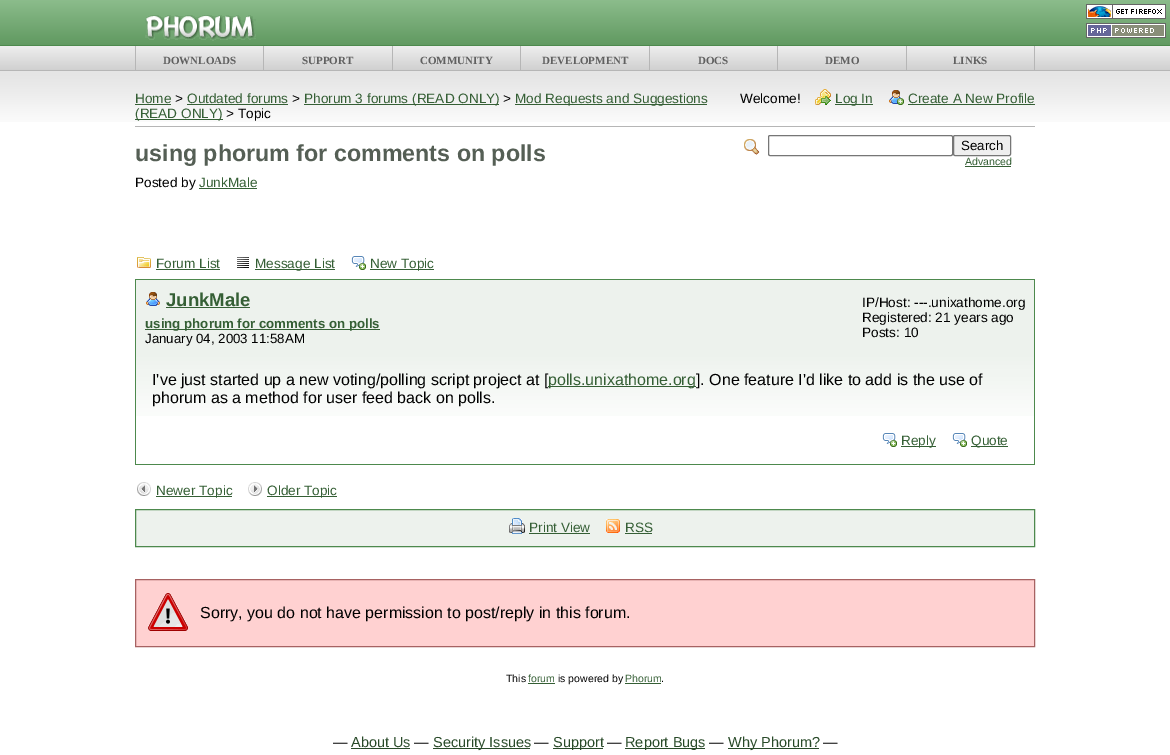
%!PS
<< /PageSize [1170 755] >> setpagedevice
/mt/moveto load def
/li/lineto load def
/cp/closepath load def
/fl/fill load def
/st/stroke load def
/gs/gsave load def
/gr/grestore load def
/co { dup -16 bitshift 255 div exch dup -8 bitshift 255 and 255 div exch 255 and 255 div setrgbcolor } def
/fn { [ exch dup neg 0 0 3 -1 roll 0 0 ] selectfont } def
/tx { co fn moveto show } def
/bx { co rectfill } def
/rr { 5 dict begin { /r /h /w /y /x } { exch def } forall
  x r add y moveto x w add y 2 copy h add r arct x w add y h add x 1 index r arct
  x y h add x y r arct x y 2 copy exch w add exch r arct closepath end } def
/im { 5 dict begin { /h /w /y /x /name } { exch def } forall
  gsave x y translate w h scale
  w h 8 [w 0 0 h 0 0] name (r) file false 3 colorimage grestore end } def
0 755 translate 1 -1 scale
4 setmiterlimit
0 0 1170 755 16#FFFFFF bx
(media/1.raw) 0 71 1170 51 im
(media/2.raw) 0 0 1170 46 im
(media/3.raw) 145 15 111 26 im
(media/4.raw) 1086 4 80 15 im
(media/5.raw) 1086 23 80 15 im
(media/6.raw) 0 46 1170 25 im
135 46 1 25 16#B6B6B6 bx
263 46 1 25 16#B6B6B6 bx
392 46 1 25 16#B6B6B6 bx
520 46 1 25 16#B6B6B6 bx
649 46 1 25 16#B6B6B6 bx
777 46 1 25 16#B6B6B6 bx
906 46 1 25 16#B6B6B6 bx
1034 46 1 25 16#B6B6B6 bx
135 126 900 1 16#B6B6B6 bx
135 104 36 1 16#355F35 bx
187 104 101 1 16#355F35 bx
304 104 195 1 16#355F35 bx
515 104 192 1 16#355F35 bx
135 119 88 1 16#355F35 bx
(media/7.raw) 815 89 16 16 im
835 104 38 1 16#355F35 bx
(media/8.raw) 889 90 15 15 im
908 104 127 1 16#355F35 bx
199 188 58 1 16#355F35 bx
(media/9.raw) 744 139 16 16 im
16#767676 co
768.5 135.5 184 20 1.5 rr st
16#EFEFEF co
953.5 135.5 57 20 1.5 rr gs fl gr
16#767676 co
st
965 166 46 1 16#355F35 bx
(media/10.raw) 137 257 14 11 im
156 269 64 1 16#355F35 bx
(media/11.raw) 237 257 12 11 im
255 269 80 1 16#355F35 bx
(media/12.raw) 351 256 15 14 im
370 269 64 1 16#355F35 bx
136 280 898 75 16#EDF2ED bx
135 279 900 1 16#4D894D bx
1034 279 1 186 16#4D894D bx
135 279 1 76 16#4D894D bx
(media/13.raw) 146 292 14 14 im
166 307 84 1 16#355F35 bx
145 329 235 1 16#355F35 bx
(media/14.raw) 136 355 898 61 im
135 464 900 1 16#4D894D bx
135 355 1 110 16#4D894D bx
(media/12.raw) 882 433 15 14 im
901 446 35 1 16#355F35 bx
(media/12.raw) 952 433 15 14 im
971 446 37 1 16#355F35 bx
(media/15.raw) 137 482 14 14 im
156 496 76 1 16#355F35 bx
(media/16.raw) 248 482 14 14 im
267 496 70 1 16#355F35 bx
16#EDF2ED co
135.5 509.5 mt 1034.5 509.5 li 1034.5 546.5 li 135.5 546.5 li cp gs fl gr
16#4D894D co
st
(media/17.raw) 509 518 16 16 im
529 533 61 1 16#355F35 bx
(media/18.raw) 606 519 14 14 im
625 533 27 1 16#355F35 bx
136 580 898 66 16#FFD1D1 bx
(media/19.raw) 148 593 40 38 im
16#A76262 co
135.5 579.5 899 67 rectstroke
528 683 27 1 16#355F35 bx
625 683 36 1 16#355F35 bx
351 748 59 1 16#294A29 bx
433 748 97 1 16#294A29 bx
553 748 50 1 16#294A29 bx
625 748 80 1 16#294A29 bx
728 748 91 1 16#294A29 bx
(DOWNLOADS) 163 64 /LiberationSerif-Bold 11 16#606060 tx
(SUPPORT) 302 64 /LiberationSerif-Bold 11 16#606060 tx
(COMMUNITY) 420 64 /LiberationSerif-Bold 11 16#606060 tx
(DEVELOPMENT) 542 64 /LiberationSerif-Bold 11 16#606060 tx
(DOCS) 698 64 /LiberationSerif-Bold 11 16#606060 tx
(DEMO) 825 64 /LiberationSerif-Bold 11 16#606060 tx
(LINKS) 953 64 /LiberationSerif-Bold 11 16#606060 tx
(Home) 135 103 /LiberationSans-Regular 13.6 16#355F35 tx
(>) 175 103 /LiberationSans-Regular 13.6 16#000000 tx
(Outdated forums) 187 103 /LiberationSans-Regular 13.6 16#355F35 tx
(>) 292 103 /LiberationSans-Regular 13.6 16#000000 tx
(Phorum 3 forums \(READ ONLY\)) 304 103 /LiberationSans-Regular 13.6 16#355F35 tx
(>) 503 103 /LiberationSans-Regular 13.6 16#000000 tx
(Mod Requests and Suggestions) 515 103 /LiberationSans-Regular 13.6 16#355F35 tx
(\(READ ONLY\)) 135 118 /LiberationSans-Regular 13.6 16#355F35 tx
(> Topic) 226 118 /LiberationSans-Regular 13.6 16#000000 tx
(Welcome!) 740 103 /LiberationSans-Regular 13.6 16#000000 tx
(Log In) 835 103 /LiberationSans-Regular 13.6 16#355F35 tx
(Create A New Profile) 908 103 /LiberationSans-Regular 13.6 16#355F35 tx
(using phorum for comments on polls) 135 161 /LiberationSans-Bold 23.25 16#555F55 tx
(Posted by) 135 187 /LiberationSans-Regular 13.6 16#000000 tx
(JunkMale) 199 187 /LiberationSans-Regular 13.6 16#355F35 tx
(Search) 961 150 /LiberationSans-Regular 13.3 16#000000 tx
(Advanced) 965 165 /LiberationSans-Regular 10.5 16#355F35 tx
(Forum List) 156 268 /LiberationSans-Regular 13.6 16#355F35 tx
(Message List) 255 268 /LiberationSans-Regular 13.6 16#355F35 tx
(New Topic) 370 268 /LiberationSans-Regular 13.6 16#355F35 tx
(JunkMale) 166 306 /LiberationSans-Bold 18.5 16#355F35 tx
(using phorum for comments on polls) 145 328 /LiberationSans-Bold 13.3 16#355F35 tx
(January 04, 2003 11:58AM) 145 343 /LiberationSans-Regular 13.3 16#000000 tx
(IP/Host: ---.unixathome.org) 862 307 /LiberationSans-Regular 13.6 16#000000 tx
(Registered: 21 years ago) 862 322 /LiberationSans-Regular 13.6 16#000000 tx
(Posts: 10) 862 337 /LiberationSans-Regular 13.6 16#000000 tx
(I've just started up a new voting/polling script project at [) 152 385 /LiberationSans-Regular 16 16#000000 tx
548 386 148 1 16#355F35 bx
(polls.unixathome.org) 548 385 /LiberationSans-Regular 16 16#355F35 tx
(]. One feature I'd like to add is the use of) 696 385 /LiberationSans-Regular 16 16#000000 tx
(phorum as a method for user feed back on polls.) 152 403 /LiberationSans-Regular 16 16#000000 tx
(Reply) 901 445 /LiberationSans-Regular 13.6 16#355F35 tx
(Quote) 971 445 /LiberationSans-Regular 13.6 16#355F35 tx
(Newer Topic) 156 495 /LiberationSans-Regular 13.6 16#355F35 tx
(Older Topic) 267 495 /LiberationSans-Regular 13.6 16#355F35 tx
(Print View) 529 532 /LiberationSans-Regular 13.6 16#355F35 tx
(RSS) 625 532 /LiberationSans-Regular 13.6 16#355F35 tx
(Sorry, you do not have permission to post/reply in this forum.) 200 618 /LiberationSans-Regular 16 16#000000 tx
(This) 506 682 /LiberationSans-Regular 10.5 16#000000 tx
(forum) 528 682 /LiberationSans-Regular 10.5 16#355F35 tx
(is powered by) 558 682 /LiberationSans-Regular 10.5 16#000000 tx
(Phorum) 625 682 /LiberationSans-Regular 10.5 16#355F35 tx
(.) 661 682 /LiberationSans-Regular 10.5 16#000000 tx
(—) 333 747 /LiberationSans-Regular 14.5 16#000000 tx
(About Us) 351 747 /LiberationSans-Regular 14.5 16#294A29 tx
(—) 414 747 /LiberationSans-Regular 14.5 16#000000 tx
(Security Issues) 433 747 /LiberationSans-Regular 14.5 16#294A29 tx
(—) 534 747 /LiberationSans-Regular 14.5 16#000000 tx
(Support) 553 747 /LiberationSans-Regular 14.5 16#294A29 tx
(—) 607 747 /LiberationSans-Regular 14.5 16#000000 tx
(Report Bugs) 625 747 /LiberationSans-Regular 14.5 16#294A29 tx
(—) 709 747 /LiberationSans-Regular 14.5 16#000000 tx
(Why Phorum?) 728 747 /LiberationSans-Regular 14.5 16#294A29 tx
(—) 823 747 /LiberationSans-Regular 14.5 16#000000 tx
showpage
